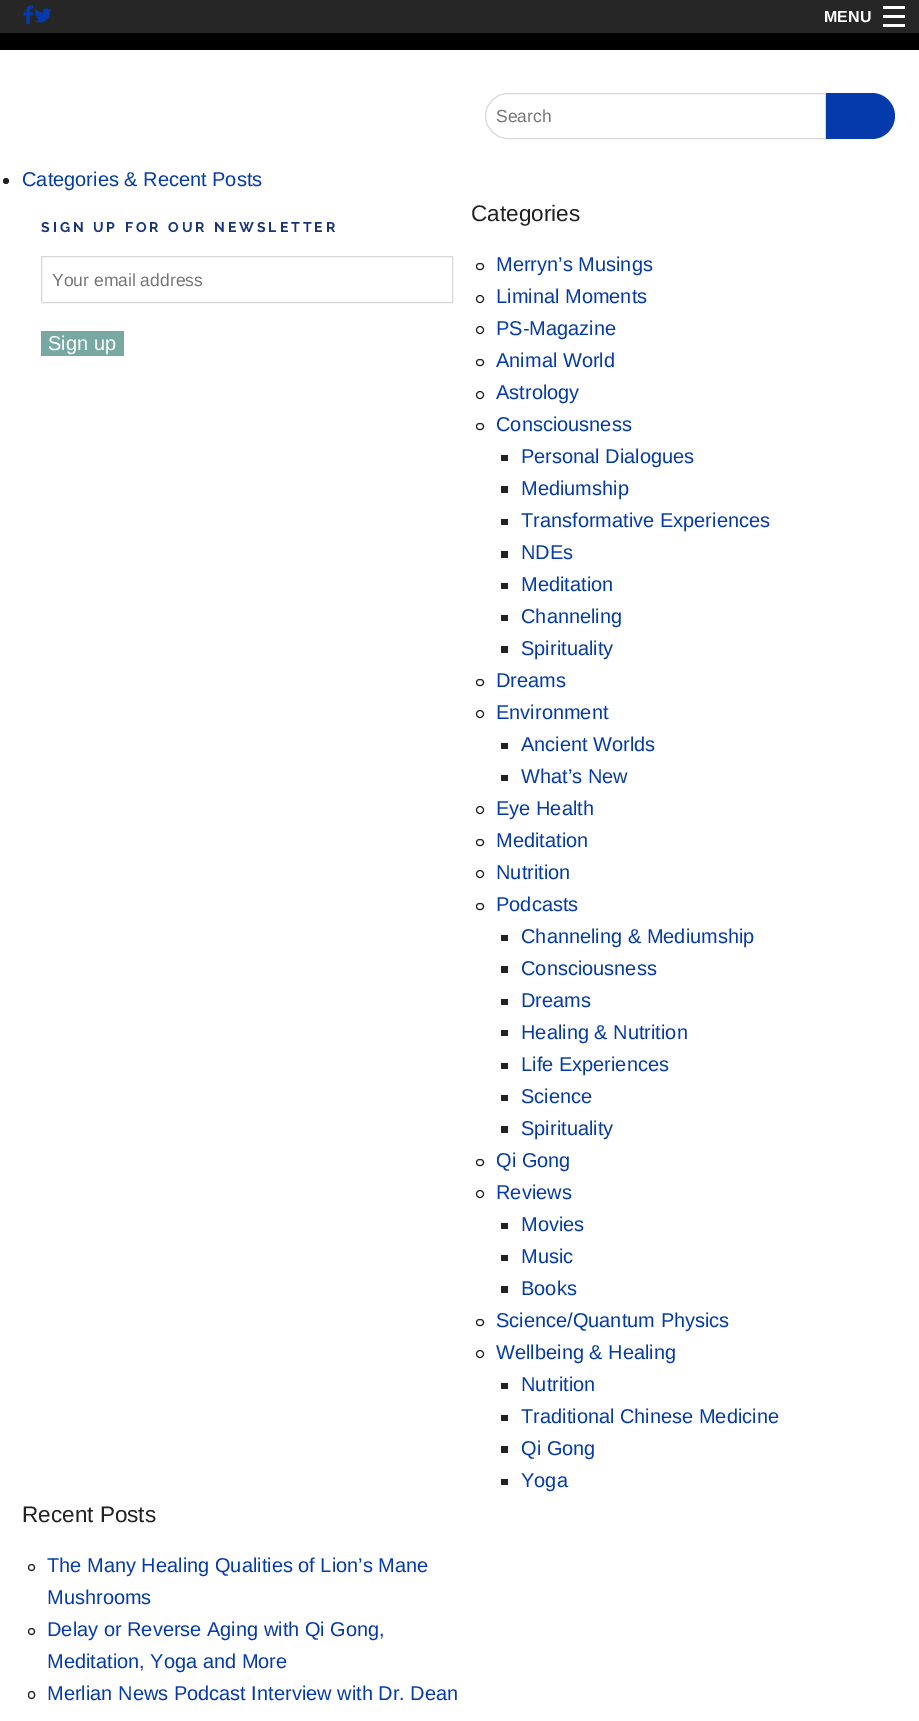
%!PS
<< /PageSize [919 1721] >> setpagedevice
/mt/moveto load def
/li/lineto load def
/ct/curveto load def
/cp/closepath load def
/fl/fill load def
/st/stroke load def
/co { dup -16 bitshift 255 div exch dup -8 bitshift 255 and 255 div exch 255 and 255 div setrgbcolor } def
/fn { [ exch dup neg 0 0 3 -1 roll 0 0 ] selectfont } def
/tx { co fn moveto show } def
/bx { co rectfill } def
/ci { newpath 0 360 arc closepath } def
/rr { 5 dict begin { /r /h /w /y /x } { exch def } forall
  x r add y moveto x w add y 2 copy h add r arct x w add y h add x 1 index r arct
  x y h add x y r arct x y 2 copy exch w add exch r arct closepath end } def
/im { 5 dict begin { /h /w /y /x /name } { exch def } forall
  gsave x y translate w h scale
  w h 8 [w 0 0 h 0 0] name (r) file false 3 colorimage grestore end } def
0 1721 translate 1 -1 scale
4 setmiterlimit
0 0 919 1721 16#FFFFFF bx
0 0 919 33 16#262626 bx
(media/1.raw) 23 5 11 19 im
(media/2.raw) 34 8 18 15 im
883 24 22 3 16#FFFFFF bx
883 15 22 3 16#FFFFFF bx
883 6 22 3 16#FFFFFF bx
0 33 919 17 16#000000 bx
16#D9D9D9 co
508 93.5 mt 825.5 93.5 li 825.5 138.5 li 508 138.5 li 495.5 138.5 485.5 128.5 485.5 116 ct 485.5 103.5 495.5 93.5 508 93.5 ct cp st
16#043AAC co
826 93 mt 872 93 li 884.5 93 895 103.5 895 116 ct 895 128.5 884.5 139 872 139 ct 826 139 li cp fl
16#222222 co
6 181 3 ci fl
16#D9D9D9 co
41.5 256.5 411 46 rectstroke
41 331 83 25 16#78A8A2 bx
16#222222 co
476.5 263.5 7 6 3 rr st
480 299 3.5 ci st
480 330 3.5 ci st
476.5 359.5 7 6 3 rr st
480 395 3.5 ci st
476.5 423.5 7 6 3 rr st
501 455 7 6 16#222222 bx
501 486 7 7 16#222222 bx
501 519 7 6 16#222222 bx
501 551 7 7 16#222222 bx
501 583 7 6 16#222222 bx
501 615 7 6 16#222222 bx
501 646 7 7 16#222222 bx
476.5 679.5 7 6 3 rr st
480 714 3.5 ci st
501 743 7 6 16#222222 bx
501 775 7 6 16#222222 bx
480 810 3.5 ci st
476.5 839.5 7 6 3 rr st
480 874 3.5 ci st
476.5 903.5 7 6 3 rr st
501 935 7 6 16#222222 bx
501 966 7 7 16#222222 bx
501 999 7 6 16#222222 bx
501 1030 7 6 16#222222 bx
501 1063 7 6 16#222222 bx
501 1095 7 6 16#222222 bx
501 1126 7 7 16#222222 bx
476.5 1159.5 7 6 3 rr st
480 1194 3.5 ci st
501 1223 7 6 16#222222 bx
501 1255 7 6 16#222222 bx
501 1286 7 7 16#222222 bx
476.5 1319.5 7 6 3 rr st
480 1354 3.5 ci st
501 1383 7 6 16#222222 bx
501 1415 7 6 16#222222 bx
501 1446 7 7 16#222222 bx
501 1479 7 6 16#222222 bx
31.5 1567.5 3 ci st
31.5 1631.5 3 ci st
28.5 1691.5 6 7 3 rr st
(MENU) 824 22 /LiberationSans-Bold 16 16#FFFFFF tx
(Search) 496 122 /LiberationSans-Regular 17.5 16#757575 tx
(Categories & Recent Posts) 22 186 /LiberationSans-Regular 20 16#043AAC tx
/Raleway-Bold 14.05 fn
16#193478 co
41 232 mt 3 0 (SIGN UP FOR OUR NEWSLETTER) ashow
(Your email address) 52 286 /LiberationSans-Regular 17.5 16#757575 tx
(Sign up) 48 350 /LiberationSans-Regular 20 16#FFFFFF tx
(Categories) 471 221 /LiberationSans-Regular 22.5 16#222222 tx
(Merryn’s Musings) 496 271 /LiberationSans-Regular 20 16#043AAC tx
(Liminal Moments) 496 303 /LiberationSans-Regular 20 16#043AAC tx
(PS-Magazine) 496 335 /LiberationSans-Regular 20 16#043AAC tx
(Animal World) 496 367 /LiberationSans-Regular 20 16#043AAC tx
(Astrology) 496 399 /LiberationSans-Regular 20 16#043AAC tx
(Consciousness) 496 431 /LiberationSans-Regular 20 16#043AAC tx
(Personal Dialogues) 521 463 /LiberationSans-Regular 20 16#043AAC tx
(Mediumship) 521 495 /LiberationSans-Regular 20 16#043AAC tx
(Transformative Experiences) 521 527 /LiberationSans-Regular 20 16#043AAC tx
(NDEs) 521 559 /LiberationSans-Regular 20 16#043AAC tx
(Meditation) 521 591 /LiberationSans-Regular 20 16#043AAC tx
(Channeling) 521 623 /LiberationSans-Regular 20 16#043AAC tx
(Spirituality) 521 655 /LiberationSans-Regular 20 16#043AAC tx
(Dreams) 496 687 /LiberationSans-Regular 20 16#043AAC tx
(Environment) 496 719 /LiberationSans-Regular 20 16#043AAC tx
(Ancient Worlds) 521 751 /LiberationSans-Regular 20 16#043AAC tx
(What’s New) 521 783 /LiberationSans-Regular 20 16#043AAC tx
(Eye Health) 496 815 /LiberationSans-Regular 20 16#043AAC tx
(Meditation) 496 847 /LiberationSans-Regular 20 16#043AAC tx
(Nutrition) 496 879 /LiberationSans-Regular 20 16#043AAC tx
(Podcasts) 496 911 /LiberationSans-Regular 20 16#043AAC tx
(Channeling & Mediumship) 521 943 /LiberationSans-Regular 20 16#043AAC tx
(Consciousness) 521 975 /LiberationSans-Regular 20 16#043AAC tx
(Dreams) 521 1007 /LiberationSans-Regular 20 16#043AAC tx
(Healing & Nutrition) 521 1039 /LiberationSans-Regular 20 16#043AAC tx
(Life Experiences) 521 1071 /LiberationSans-Regular 20 16#043AAC tx
(Science) 521 1103 /LiberationSans-Regular 20 16#043AAC tx
(Spirituality) 521 1135 /LiberationSans-Regular 20 16#043AAC tx
(Qi Gong) 496 1167 /LiberationSans-Regular 20 16#043AAC tx
(Reviews) 496 1199 /LiberationSans-Regular 20 16#043AAC tx
(Movies) 521 1231 /LiberationSans-Regular 20 16#043AAC tx
(Music) 521 1263 /LiberationSans-Regular 20 16#043AAC tx
(Books) 521 1295 /LiberationSans-Regular 20 16#043AAC tx
(Science/Quantum Physics) 496 1327 /LiberationSans-Regular 20 16#043AAC tx
(Wellbeing & Healing) 496 1359 /LiberationSans-Regular 20 16#043AAC tx
(Nutrition) 521 1391 /LiberationSans-Regular 20 16#043AAC tx
(Traditional Chinese Medicine) 521 1423 /LiberationSans-Regular 20 16#043AAC tx
(Qi Gong) 521 1455 /LiberationSans-Regular 20 16#043AAC tx
(Yoga) 521 1487 /LiberationSans-Regular 20 16#043AAC tx
(Recent Posts) 22 1522 /LiberationSans-Regular 22.5 16#222222 tx
(The Many Healing Qualities of Lion’s Mane) 47 1572 /LiberationSans-Regular 20 16#043AAC tx
(Mushrooms) 47 1604 /LiberationSans-Regular 20 16#043AAC tx
(Delay or Reverse Aging with Qi Gong,) 47 1636 /LiberationSans-Regular 20 16#043AAC tx
(Meditation, Yoga and More) 47 1668 /LiberationSans-Regular 20 16#043AAC tx
(Merlian News Podcast Interview with Dr. Dean) 47 1700 /LiberationSans-Regular 20 16#043AAC tx
showpage
